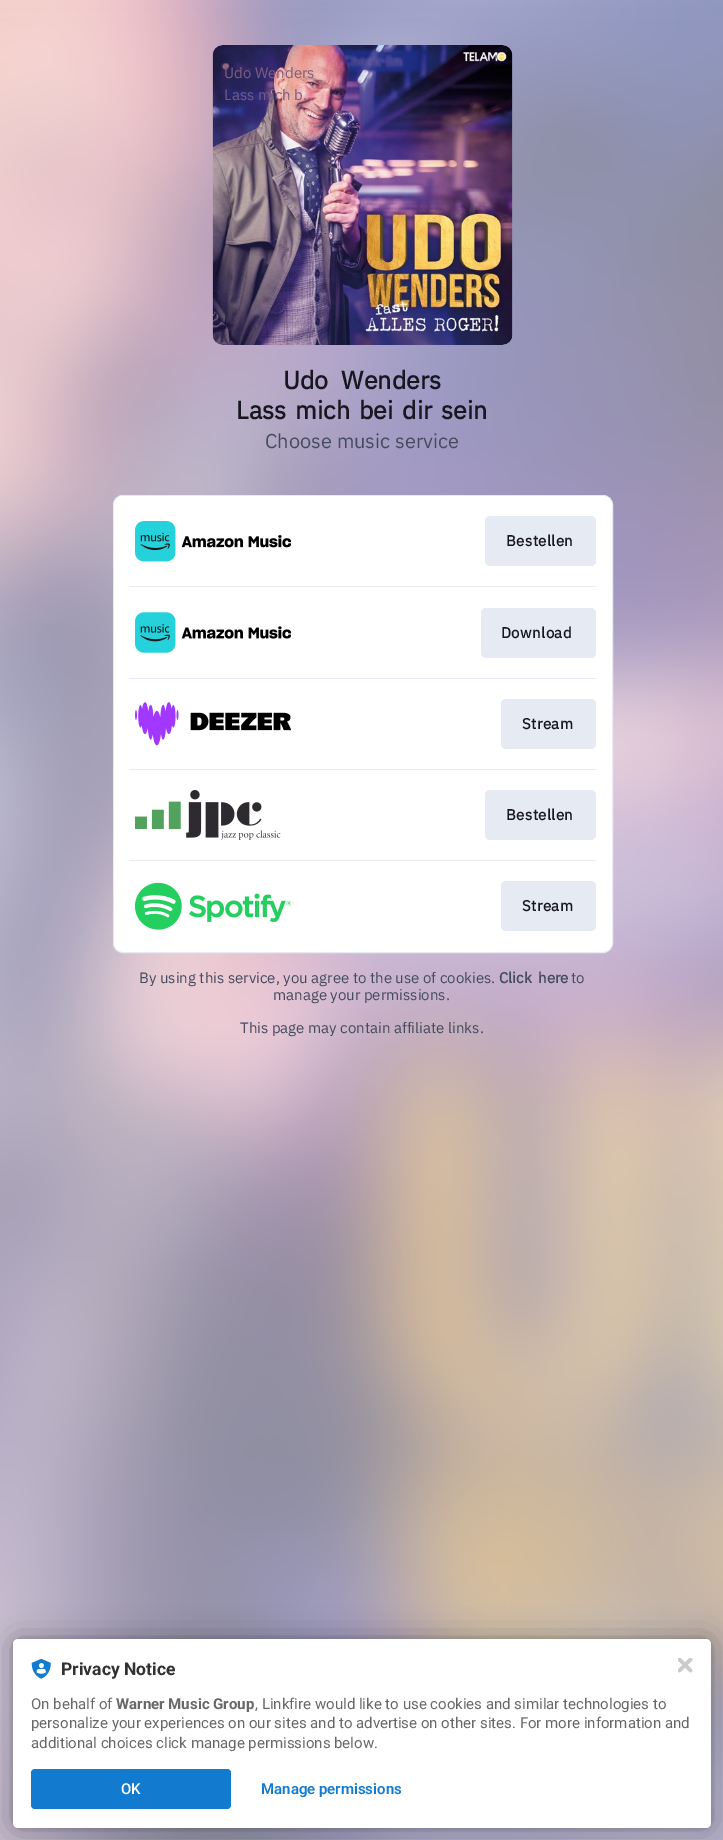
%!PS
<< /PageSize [723 1840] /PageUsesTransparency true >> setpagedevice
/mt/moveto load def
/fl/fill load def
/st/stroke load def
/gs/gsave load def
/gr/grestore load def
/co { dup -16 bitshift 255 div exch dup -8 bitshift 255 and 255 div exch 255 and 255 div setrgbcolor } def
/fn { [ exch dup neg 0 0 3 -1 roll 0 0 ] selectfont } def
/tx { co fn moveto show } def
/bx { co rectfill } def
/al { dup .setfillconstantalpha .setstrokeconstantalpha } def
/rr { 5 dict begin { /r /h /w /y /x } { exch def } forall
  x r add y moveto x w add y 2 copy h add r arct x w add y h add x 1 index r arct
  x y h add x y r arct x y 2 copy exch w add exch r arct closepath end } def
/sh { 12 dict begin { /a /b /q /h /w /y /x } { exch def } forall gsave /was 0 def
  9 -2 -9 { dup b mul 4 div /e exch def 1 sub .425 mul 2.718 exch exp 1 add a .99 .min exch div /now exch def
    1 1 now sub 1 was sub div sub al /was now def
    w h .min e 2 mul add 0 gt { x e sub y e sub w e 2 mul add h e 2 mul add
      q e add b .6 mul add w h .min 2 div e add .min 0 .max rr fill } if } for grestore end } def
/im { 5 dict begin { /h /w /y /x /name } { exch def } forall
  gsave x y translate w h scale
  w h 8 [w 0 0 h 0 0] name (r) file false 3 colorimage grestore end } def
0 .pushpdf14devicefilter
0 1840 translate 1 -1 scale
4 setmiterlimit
0 0 723 1840 16#FFFFFF bx
(media/1.raw) 0 0 723 1840 im
(media/2.raw) 212 45 301 300 im
113.5 495.5 499 457 9.5 rr gs fl gr
16#E6EAF2 co
st
16#FFFFFF co
114 496 497 455 9 rr fl
(media/3.raw) 135 521 156 41 im
16#E6EAF2 co
485 516 111 50 5 rr fl
129 586 467 1 16#E6EAF2 bx
(media/4.raw) 135 612 156 41 im
481 608 115 50 5 rr fl
129 678 467 1 16#E6EAF2 bx
(media/5.raw) 135 702 156 44 im
501 699 95 50 5 rr fl
129 769 467 1 16#E6EAF2 bx
(media/6.raw) 135 790 146 50 im
485 790 111 50 5 rr fl
129 860 467 1 16#E6EAF2 bx
(media/7.raw) 135 882 156 48 im
501 881 95 50 5 rr fl
16#000000 co
13 1639 698 189 5 2.5 .12 sh
13 1639 698 189 5 15 .3 sh
16#FFFFFF co
13 1639 698 189 5 rr fl
(media/8.raw) 678 1658 15 15 im
(media/9.raw) 31 1659 20 20 im
16#137BCF co
31 1769 200 40 4 rr fl
(Udo Wenders) 224 78 /IBMPlexSans-Regular 15 16#7F5E7D tx
(Lass mich b…) 224 100 /IBMPlexSans-Regular 15 16#755A82 tx
/IBMPlexSans-Bold 25 fn
16#181721 co
283 389 mt 7 0 32 (Udo Wenders) widthshow
236 419 mt 3 0 32 (Lass mich bei dir sein) widthshow
(Choose music service) 265 448 /IBMPlexSans-Regular 20 16#454B5F tx
/IBMPlexSans-Bold 15 fn
16#181721 co
506 546 mt .4 0 (Bestellen) ashow
501 638 mt .4 0 (Download) ashow
522 729 mt .4 0 (Stream) ashow
506 820 mt .4 0 (Bestellen) ashow
522 911 mt .4 0 (Stream) ashow
(By using this service, you agree to the use of cookies.) 139 983 /IBMPlexSans-Regular 15 16#454B5F tx
/IBMPlexSans-Bold 15 fn
499 983 mt 3 0 32 (Click here) widthshow
(to) 571 983 /IBMPlexSans-Regular 15 16#454B5F tx
(manage your permissions.) 273 1000 /IBMPlexSans-Regular 15 16#454B5F tx
(This page may contain affiliate links.) 240 1033 /IBMPlexSans-Regular 15 16#454B5F tx
(Privacy Notice) 61 1675 /Roboto-Bold 17.5 16#323232 tx
(On behalf of) 31 1709 /Roboto-Regular 15 16#686868 tx
(Warner Music Group) 116 1709 /Roboto-Bold 15 16#686868 tx
(, Linkfire would like to use cookies and similar technologies to) 255 1709 /Roboto-Regular 15 16#686868 tx
(personalize your experiences on our sites and to advertise on other sites. For more information and) 31 1728 /Roboto-Regular 15 16#686868 tx
(additional choices click manage permissions below.) 31 1748 /Roboto-Regular 15 16#686868 tx
(OK) 121 1794 /Roboto-Medium 15 16#FFFFFF tx
(Manage permissions) 261 1794 /Roboto-SemiBold 15 16#137BCF tx
.poppdf14devicefilter showpage
